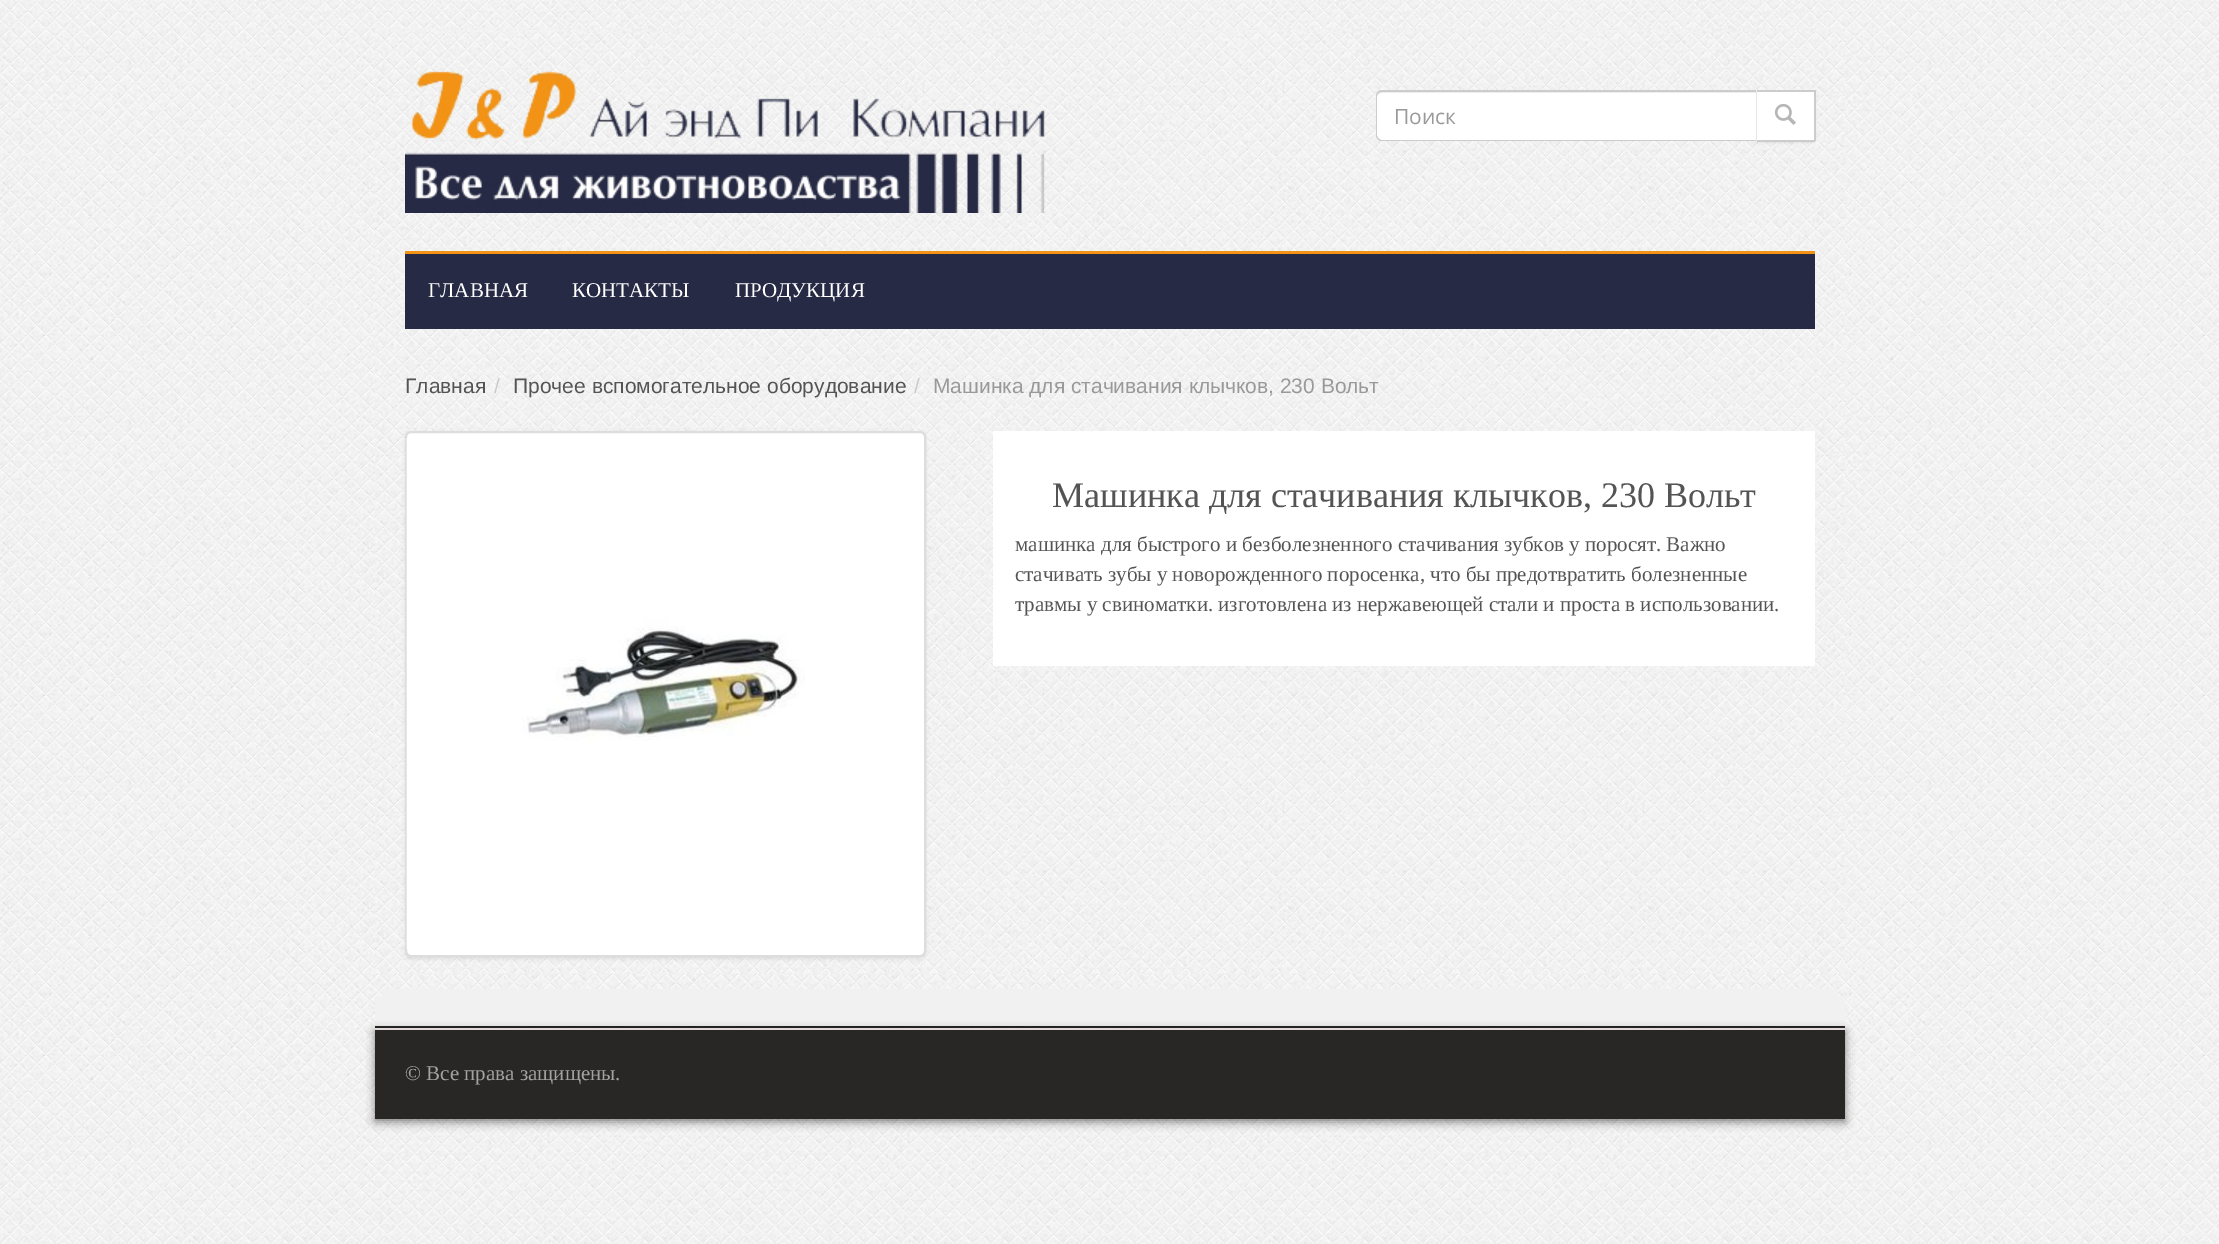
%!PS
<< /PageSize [2219 1244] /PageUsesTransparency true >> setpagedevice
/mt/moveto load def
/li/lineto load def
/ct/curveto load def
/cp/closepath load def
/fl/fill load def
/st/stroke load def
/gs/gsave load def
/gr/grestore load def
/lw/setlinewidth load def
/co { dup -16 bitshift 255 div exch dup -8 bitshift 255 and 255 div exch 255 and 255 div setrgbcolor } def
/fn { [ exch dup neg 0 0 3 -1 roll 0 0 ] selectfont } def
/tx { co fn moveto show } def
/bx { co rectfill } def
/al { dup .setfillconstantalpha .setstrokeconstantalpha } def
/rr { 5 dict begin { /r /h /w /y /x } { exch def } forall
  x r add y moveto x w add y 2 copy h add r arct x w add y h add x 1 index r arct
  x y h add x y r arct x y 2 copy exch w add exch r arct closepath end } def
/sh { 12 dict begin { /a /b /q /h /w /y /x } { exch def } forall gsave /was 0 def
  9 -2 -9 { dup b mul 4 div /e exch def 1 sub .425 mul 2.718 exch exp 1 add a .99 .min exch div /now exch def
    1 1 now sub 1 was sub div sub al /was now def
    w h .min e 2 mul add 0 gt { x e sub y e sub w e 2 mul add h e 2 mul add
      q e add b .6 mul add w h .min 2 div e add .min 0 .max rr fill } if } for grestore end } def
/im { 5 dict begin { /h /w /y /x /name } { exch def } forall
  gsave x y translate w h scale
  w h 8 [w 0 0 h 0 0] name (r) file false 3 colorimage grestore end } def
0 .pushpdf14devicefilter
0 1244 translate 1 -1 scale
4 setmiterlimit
0 0 2219 1244 16#FFFFFF bx
(media/1.raw) 0 0 2219 1244 im
385 973 1460 1 16#F1F1F1 bx
(media/2.raw) 375 30 1470 944 im
(media/3.raw) 405 71 640 142 im
16#FFFFFF co
1382 92 mt 1757 92 li 1757 140 li 1382 140 li 1379 140 1377 138 1377 135 ct 1377 97 li 1377 94 1379 92 1382 92 ct cp fl
0.07 al
16#000000 co
1382 93 mt 1756 93 li 1756 140 li 1757 140 li 1757 92 li 1382 92 li 1379 92 1377 95 1377 98 ct 1377 95 1379 93 1382 93 ct cp fl
1 al
16#CCCCCC co
1382 90 mt 1756 90 li 1756 141 li 1382 141 li 1378 141 1376 138 1376 135 ct 1376 96 li 1376 93 1378 90 1382 90 ct cp 1382 92 mt 1756 92 li 1756 140 li 1382 140 li 1379 140 1377 137 1377 135 ct 1377 96 li 1377 94 1379 92 1382 92 ct cp eofill
16#000000 co
1757 92 58 51 0 1 .07 sh
1757 92 57 48 16#FFFFFF bx
1757 90 58 2 16#CCCCCC bx
1814 90 2 51 16#CCCCCC bx
1757 140 58 2 16#CCCCCC bx
(media/4.raw) 1774 103 22 22 im
405 254 1410 75 16#262A45 bx
405 251 1410 3 16#F29315 bx
16#000000 co
405 432 521 527 6 1.5 .07 sh
16#FFFFFF co
406 432 519 524 5 rr gs fl gr
16#DDDDDD co
2 lw
st
(media/5.raw) 406 438 399 511 im
993 431 822 235 16#FFFFFF bx
383 989 1455 7 16#F1F1F1 bx
375 996 1470 30 16#F1F1F1 bx
375 1027 1470 1 16#2C2C2C bx
(media/6.raw) 375 1026 1470 2 im
16#000000 co
375 1031 1470 91 0 4.5 .47 sh
375 1030 1470 89 16#292626 bx
375 1028 1470 2 16#E0D7D7 bx
(Поиск) 1394 124 /OpenSans-Regular 21 16#999999 tx
(ГЛАВНАЯ) 428 297 /LiberationSerif-Regular 21 16#FFFFFF tx
(КОНТАКТЫ) 572 297 /LiberationSerif-Regular 21 16#FFFFFF tx
(ПРОДУКЦИЯ) 735 297 /LiberationSerif-Regular 21 16#FFFFFF tx
(Главная) 405 393 /LiberationSans-Regular 21 16#545454 tx
(/) 494 393 /LiberationSans-Regular 21 16#CCCCCC tx
(Прочее вспомогательное оборудование) 513 393 /LiberationSans-Regular 21 16#545454 tx
(/) 914 393 /LiberationSans-Regular 21 16#CCCCCC tx
(Машинка для стачивания клычков, 230 Вольт) 933 393 /LiberationSans-Regular 21 16#999999 tx
(Машинка для стачивания клычков, 230 Вольт) 1052 507 /LiberationSerif-Regular 36 16#545454 tx
(машинка для быстрого и безболезненного стачивания зубков у поросят. Важно) 1015 551 /LiberationSerif-Regular 21 16#545454 tx
(стачивать зубы у новорожденного поросенка, что бы предотвратить болезненные) 1015 581 /LiberationSerif-Regular 21 16#545454 tx
(травмы у свиноматки. изготовлена из нержавеющей стали и проста в использовании.) 1015 611 /LiberationSerif-Regular 21 16#545454 tx
(© Все права защищены.) 405 1080 /LiberationSerif-Regular 21 16#A3A3A3 tx
.poppdf14devicefilter showpage
